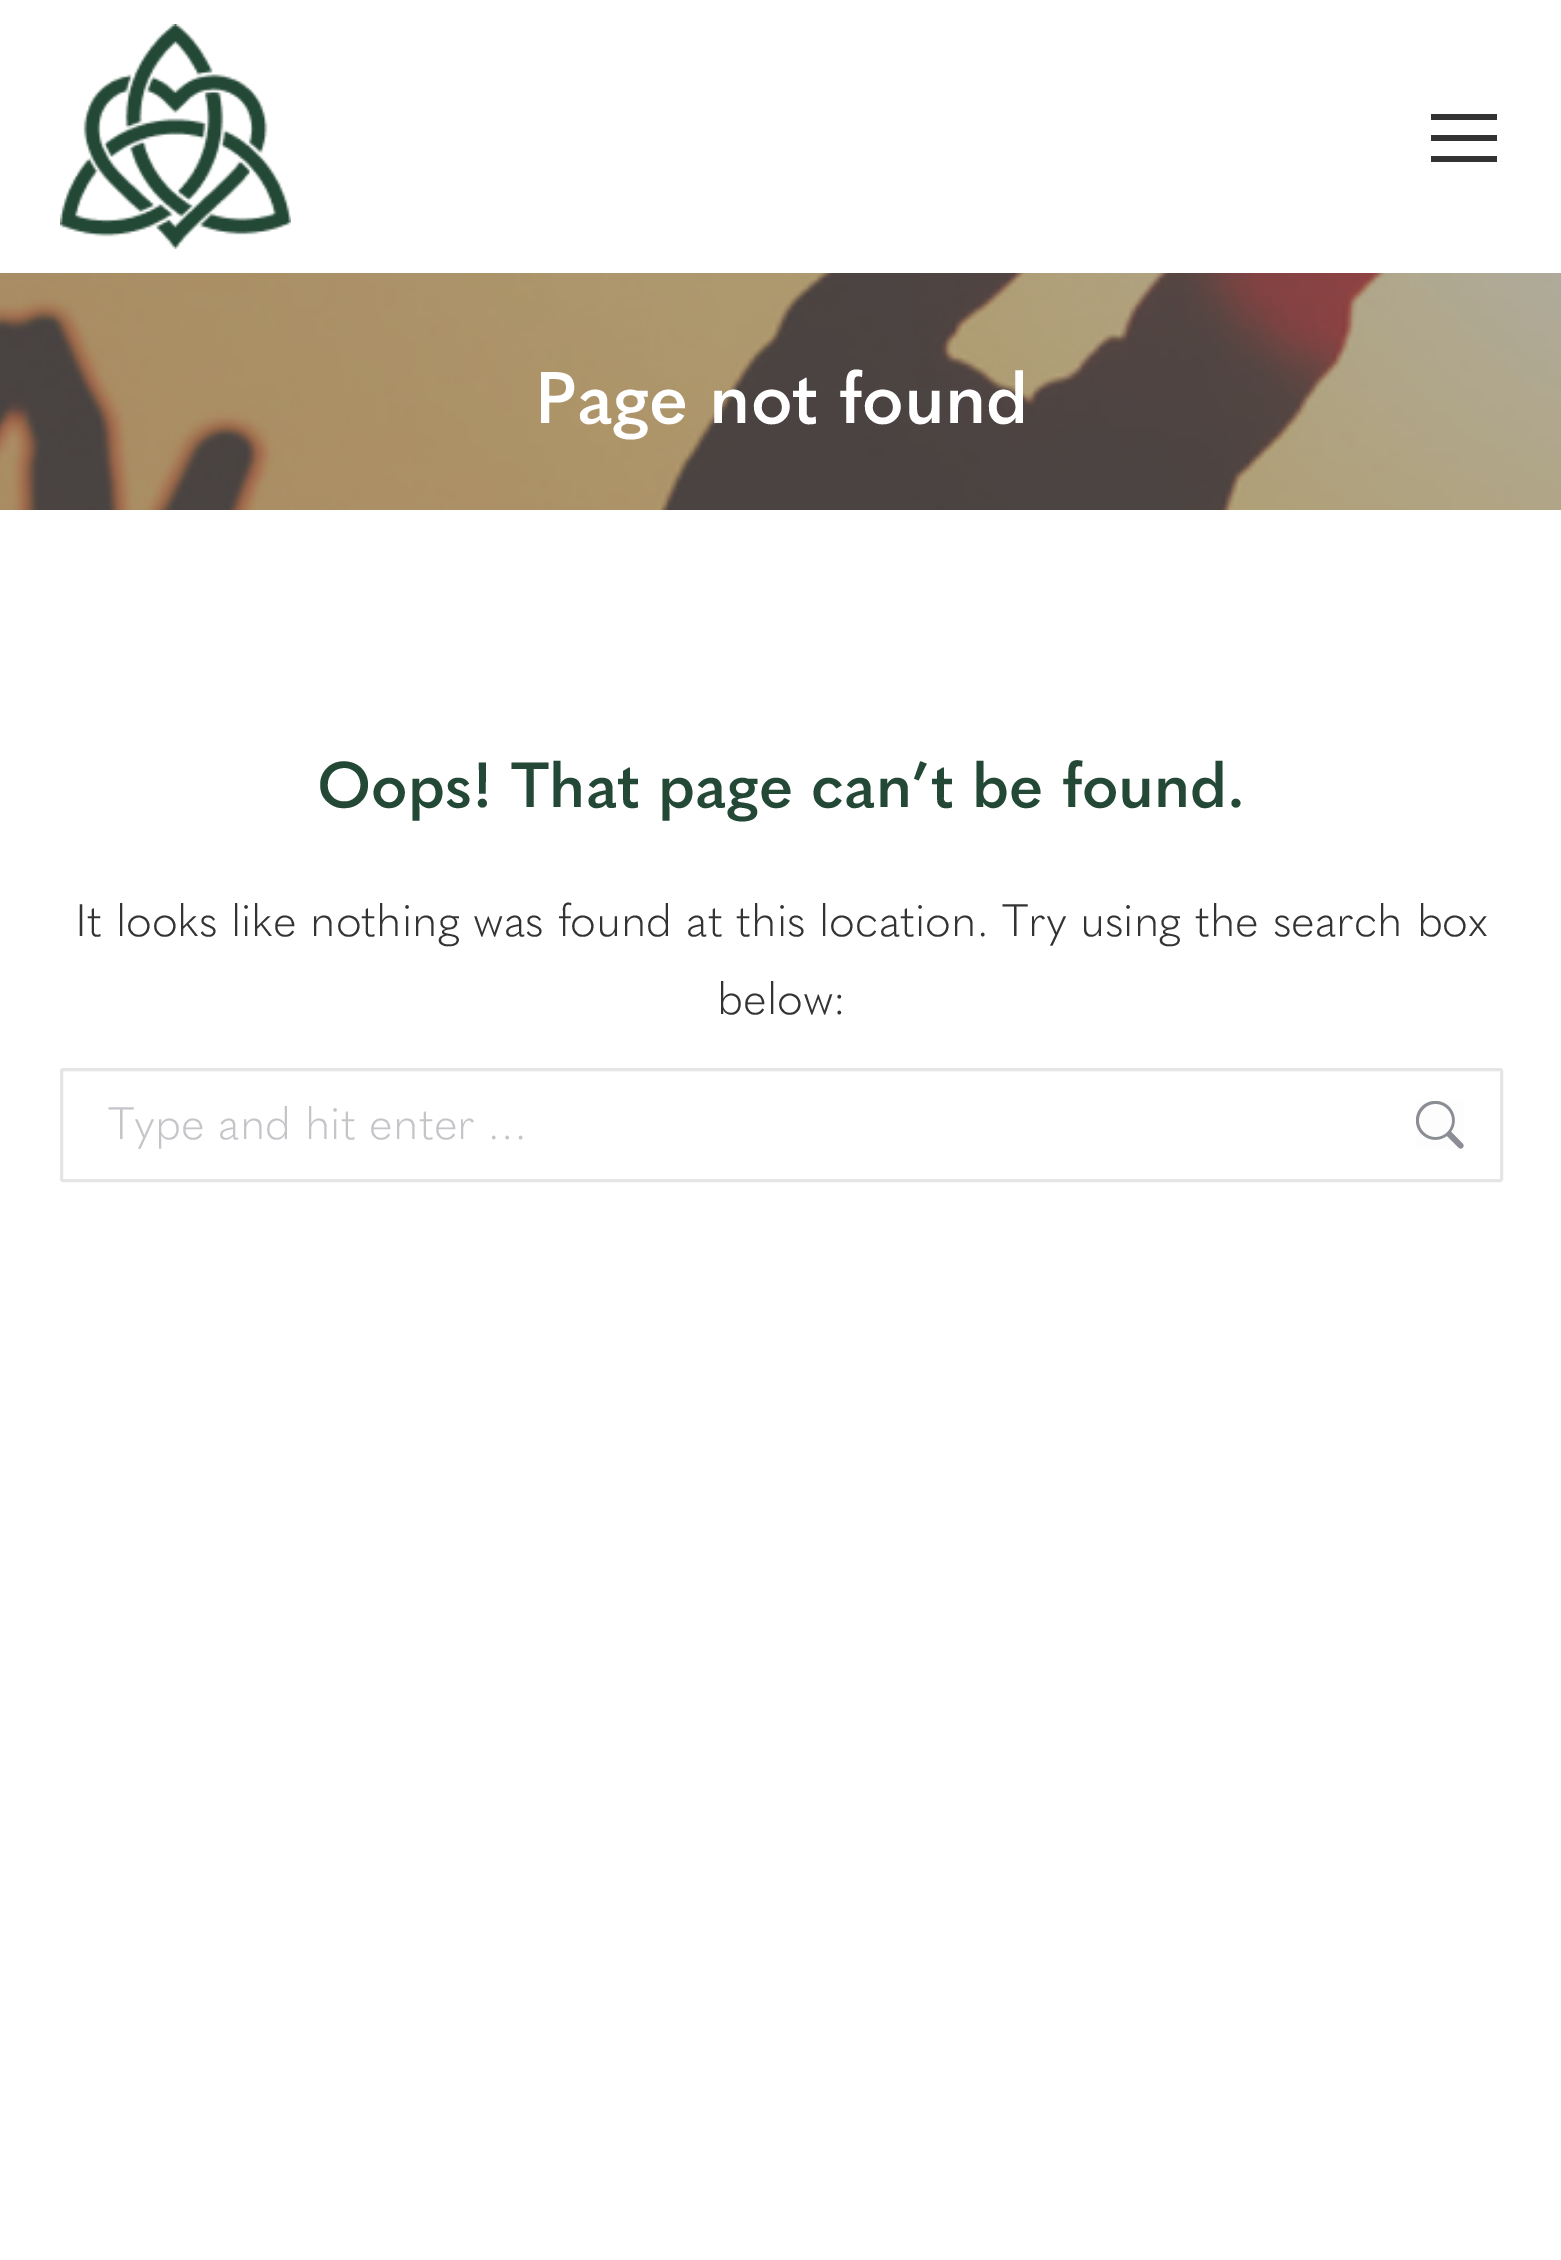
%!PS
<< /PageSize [1561 2260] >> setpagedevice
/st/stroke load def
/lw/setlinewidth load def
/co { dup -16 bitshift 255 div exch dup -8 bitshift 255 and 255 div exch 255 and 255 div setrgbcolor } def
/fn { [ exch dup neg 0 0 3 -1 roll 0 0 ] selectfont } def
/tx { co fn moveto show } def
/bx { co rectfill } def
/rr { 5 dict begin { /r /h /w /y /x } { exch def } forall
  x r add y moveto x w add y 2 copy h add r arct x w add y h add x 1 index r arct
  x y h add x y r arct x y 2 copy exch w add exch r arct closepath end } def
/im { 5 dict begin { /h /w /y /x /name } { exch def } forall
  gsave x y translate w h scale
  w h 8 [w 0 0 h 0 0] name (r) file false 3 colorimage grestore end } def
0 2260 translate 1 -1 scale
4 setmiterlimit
0 0 1561 2260 16#FFFFFF bx
(media/1.raw) 60 24 231 225 im
1431 114 66 6 16#333333 bx
1431 135 66 6 16#333333 bx
1431 156 66 6 16#333333 bx
0 273 1561 237 16#6C6666 bx
(media/2.raw) 0 273 1561 237 im
16#E5E5E5 co
3 lw
61.5 1069.5 1440 111 1.5 rr st
(media/3.raw) 1416 1101 48 48 im
(Page not found) 535 423 /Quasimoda-SemiBold 72 16#FFFFFF tx
(Oops! That page can’t be found.) 317 807 /Quasimoda-SemiBold 63 16#234836 tx
(It looks like nothing was found at this location. Try using the search box) 75 936 /Quasimoda-Light 45 16#333333 tx
(below:) 717 1014 /Quasimoda-Light 45 16#333333 tx
(Type and hit enter …) 108 1139 /Quasimoda-Light 45 16#C4C5C9 tx
showpage
